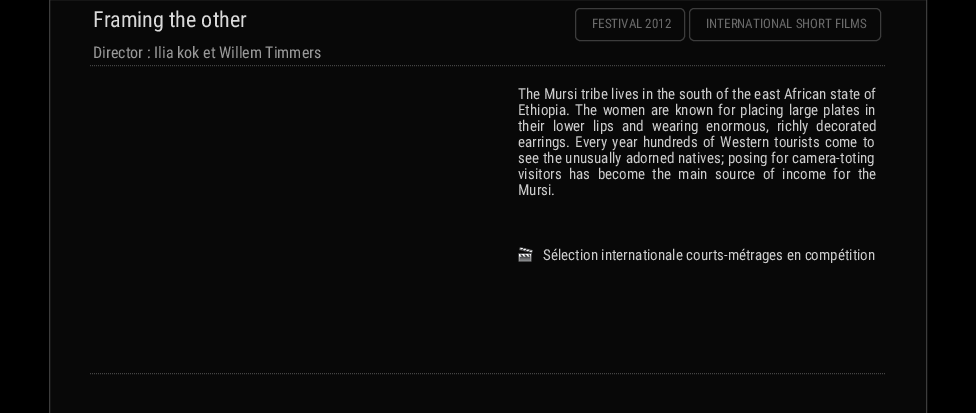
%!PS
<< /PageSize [976 413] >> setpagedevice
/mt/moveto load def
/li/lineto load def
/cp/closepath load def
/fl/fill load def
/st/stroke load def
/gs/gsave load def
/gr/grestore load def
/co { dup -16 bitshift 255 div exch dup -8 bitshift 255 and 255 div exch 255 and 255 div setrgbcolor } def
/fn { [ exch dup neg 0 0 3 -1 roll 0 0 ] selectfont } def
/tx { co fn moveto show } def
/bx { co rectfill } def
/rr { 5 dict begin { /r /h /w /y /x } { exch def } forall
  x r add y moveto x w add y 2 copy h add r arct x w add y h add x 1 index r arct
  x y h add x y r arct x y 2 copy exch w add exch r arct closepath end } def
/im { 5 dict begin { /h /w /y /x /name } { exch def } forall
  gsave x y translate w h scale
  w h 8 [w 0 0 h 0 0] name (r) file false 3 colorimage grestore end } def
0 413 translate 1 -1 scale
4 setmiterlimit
0 0 976 413 16#000000 bx
16#080808 co
49.5 -.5 mt 926.5 -.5 li 926.5 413.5 li 49.5 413.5 li cp gs fl gr
16#3C3C3C co
st
575.5 8.5 109 32 4.5 rr st
689.5 8.5 191 32 4.5 rr st
16#444444 co
[1 1] 0 setdash
90 65.5 mt 886 65.5 li st
(media/1.raw) 518 247 15 15 im
90 373.5 mt 886 373.5 li st
(Framing the other) 93 27 /RobotoCondensed-Regular 22 16#DADADA tx
(Director : Ilia kok et Willem Timmers) 93 58 /RobotoCondensed-Regular 16 16#999999 tx
(FESTIVAL 2012) 592 28 /RobotoCondensed-Regular 13 16#6A6A6A tx
(INTERNATIONAL SHORT FILMS) 706 28 /RobotoCondensed-Regular 13 16#6A6A6A tx
/RobotoCondensed-Regular 15 fn
16#CCCCCC co
518 99 mt .25 0 32 (The Mursi tribe lives in the south of the east African state of) widthshow
518 115 mt 1.75 0 32 (Ethiopia. The women are known for placing large plates in) widthshow
518 131 mt 4.5 0 32 (their lower lips and wearing enormous, richly decorated) widthshow
518 147 mt 1.75 0 32 (earrings. Every year hundreds of Western tourists come to) widthshow
518 163 mt .5 0 32 (see the unusually adorned natives; posing for camera-toting) widthshow
518 179 mt 4 0 32 (visitors has become the main source of income for the) widthshow
(Mursi.) 518 195 /RobotoCondensed-Regular 15 16#CCCCCC tx
(Sélection internationale courts-métrages en compétition) 543 260 /RobotoCondensed-Regular 15 16#CCCCCC tx
showpage
